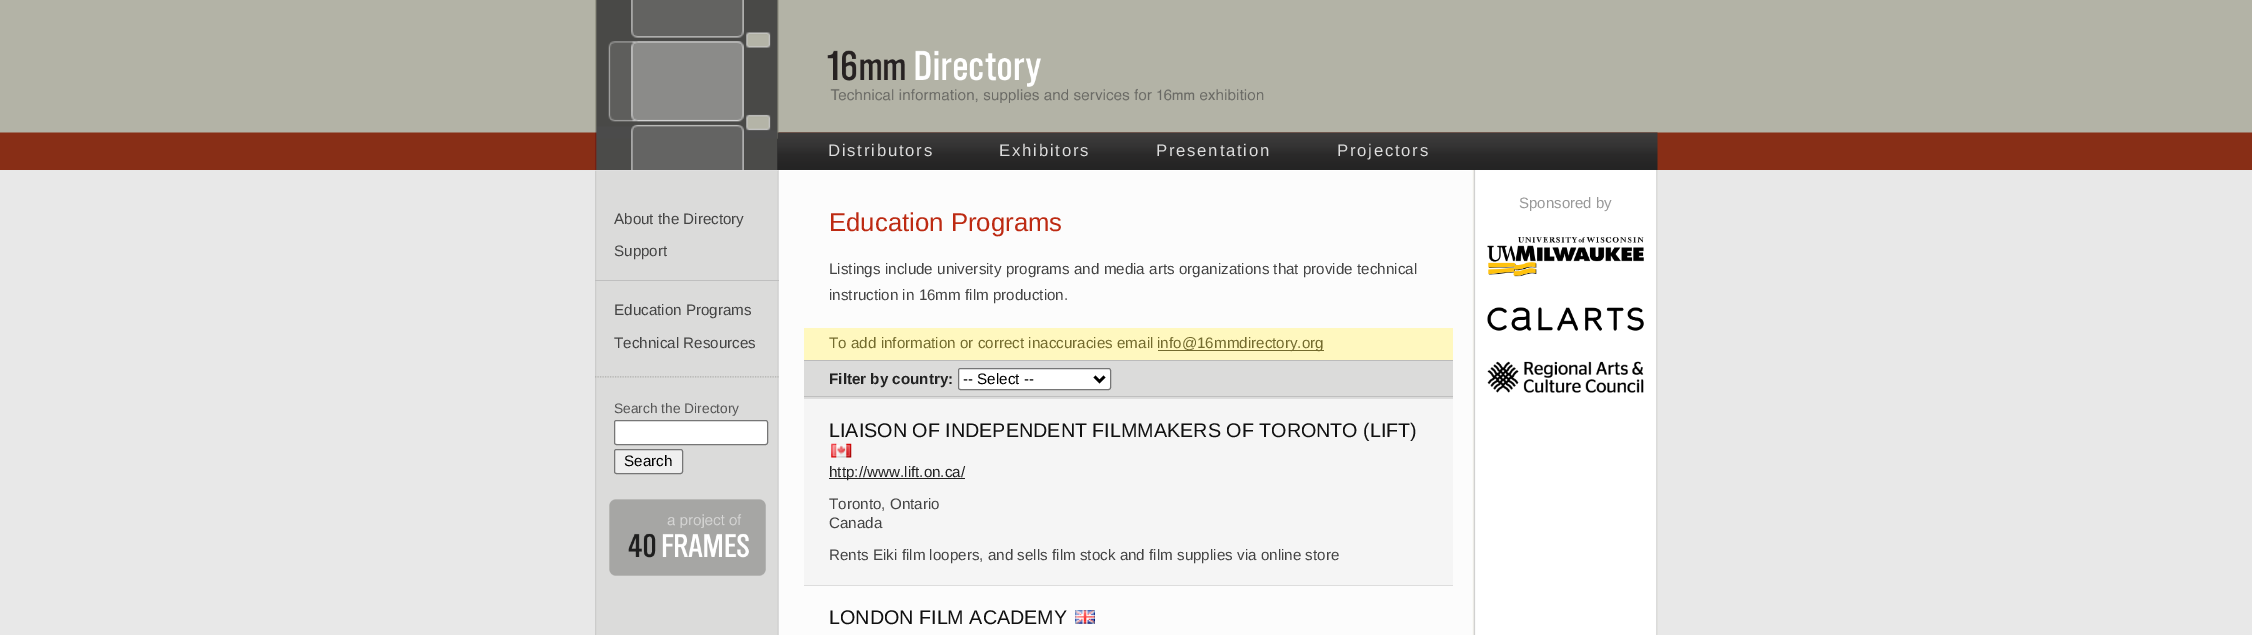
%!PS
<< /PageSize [2252 635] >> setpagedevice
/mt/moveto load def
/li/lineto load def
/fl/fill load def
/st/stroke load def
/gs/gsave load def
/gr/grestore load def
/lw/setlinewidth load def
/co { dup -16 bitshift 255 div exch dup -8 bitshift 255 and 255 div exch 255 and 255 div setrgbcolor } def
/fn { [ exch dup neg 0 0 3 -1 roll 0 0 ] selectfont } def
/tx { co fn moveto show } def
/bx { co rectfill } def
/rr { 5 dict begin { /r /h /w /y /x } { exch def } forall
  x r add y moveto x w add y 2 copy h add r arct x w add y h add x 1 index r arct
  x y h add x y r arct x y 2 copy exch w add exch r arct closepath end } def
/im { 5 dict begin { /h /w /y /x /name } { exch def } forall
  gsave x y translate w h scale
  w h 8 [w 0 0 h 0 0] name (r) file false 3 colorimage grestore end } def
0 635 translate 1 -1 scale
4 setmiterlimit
0 0 2252 635 16#E8E8E8 bx
(media/1.raw) 0 0 2252 170 im
(media/2.raw) 595 0 184 170 im
(media/3.raw) 827 50 437 53 im
(media/4.raw) 777 132 881 38 im
1657 170 1 465 16#F7F7F2 bx
(media/5.raw) 595 170 1063 465 im
(media/6.raw) 1487 237 157 40 im
(media/7.raw) 1487 307 157 24 im
(media/8.raw) 1487 361 157 32 im
595 170 184 1 16#DFDFDF bx
(media/9.raw) 595 376 184 2 im
595 280 184 1 16#BFBFBF bx
16#FFFFFF co
614.5 420.5 153 24 2 rr gs fl gr
16#767676 co
st
16#EFEFEF co
614.5 449.5 68 24 2 rr gs fl gr
16#767676 co
st
(media/10.raw) 609 499 157 77 im
779 170 692 1 16#FFFFFF bx
804 328 649 32 16#FFF8BF bx
1158 350 166 1 16#736B2E bx
804 361 649 37 16#DBDBDA bx
804 360 649 1 16#BBBBBB bx
804 396 649 1 16#BFBFBF bx
16#FFFFFF co
958.5 368.5 152 21 2 rr gs fl gr
16#767676 co
st
16#000000 co
2.5 lw
1094.5 376.5 mt 1099.5 381.5 li 1104.5 376.5 li st
804 399 649 186 16#F5F5F5 bx
804 398 649 1 16#DDDDDD bx
(media/11.raw) 831 443 21 15 im
829 478 136 1 16#222222 bx
804 585 649 1 16#DDDDDD bx
(media/12.raw) 1075 610 20 14 im
/LiberationSans-Regular 16.75 fn
828 156 mt 1.75 0 (Distributors) ashow
999 156 mt 1.75 0 (Exhibitors) ashow
1156 156 mt 1.75 0 (Presentation) ashow
1337 156 mt 1.75 0 (Projectors) ashow
(Sponsored by) 1519 208 /LiberationSans-Regular 15 16#999999 tx
(About the Directory) 614 224 /LiberationSans-Regular 15.2 16#444444 tx
(Support) 614 256 /LiberationSans-Regular 15.2 16#444444 tx
(Education Programs) 614 315 /LiberationSans-Regular 15.2 16#444444 tx
(Technical Resources) 614 348 /LiberationSans-Regular 15.2 16#444444 tx
(Search the Directory) 614 413 /LiberationSans-Regular 13.75 16#555555 tx
(Search) 624 466 /LiberationSans-Regular 15.2 16#000000 tx
(Education Programs) 829 231 /LiberationSans-Regular 25.75 16#BD2A12 tx
(Listings include university programs and media arts organizations that provide technical) 829 274 /LiberationSans-Regular 15.2 16#444444 tx
(instruction in 16mm film production.) 829 300 /LiberationSans-Regular 15.2 16#444444 tx
(To add information or correct inaccuracies email) 829 348 /LiberationSans-Regular 15.2 16#736B2E tx
(info@16mmdirectory.org) 1157 348 /LiberationSans-Regular 15.2 16#736B2E tx
(Filter by country:) 829 384 /LiberationSans-Bold 15.2 16#222222 tx
(-- Select --) 963 384 /LiberationSans-Regular 15.2 16#000000 tx
(LIAISON OF INDEPENDENT FILMMAKERS OF TORONTO \(LIFT\)) 829 437 /LiberationSans-Regular 19.75 16#111111 tx
(http://www.lift.on.ca/) 829 477 /LiberationSans-Regular 15.2 16#222222 tx
(Toronto, Ontario) 829 509 /LiberationSans-Regular 15.2 16#444444 tx
(Canada) 829 528 /LiberationSans-Regular 15.2 16#444444 tx
(Rents Eiki film loopers, and sells film stock and film supplies via online store) 829 560 /LiberationSans-Regular 15.2 16#444444 tx
(LONDON FILM ACADEMY) 829 624 /LiberationSans-Regular 19.75 16#111111 tx
showpage
